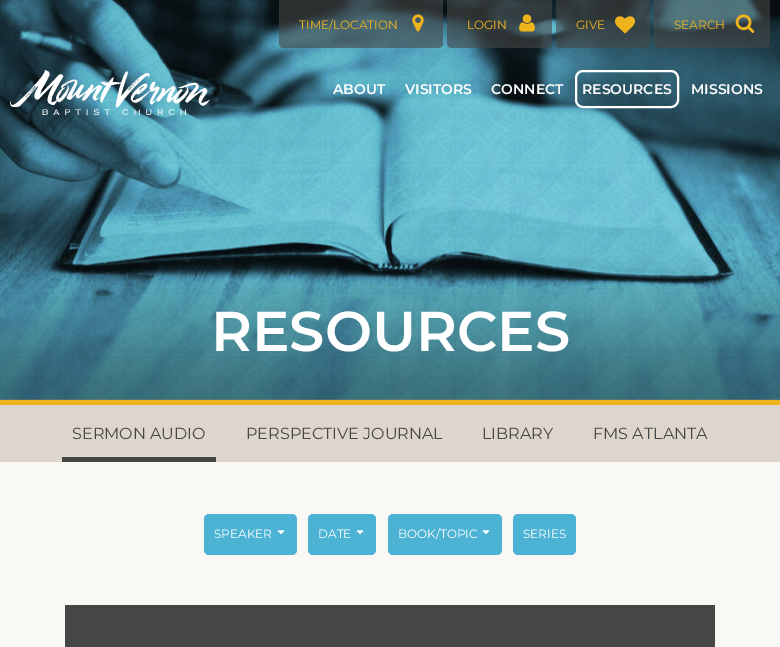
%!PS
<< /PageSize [780 647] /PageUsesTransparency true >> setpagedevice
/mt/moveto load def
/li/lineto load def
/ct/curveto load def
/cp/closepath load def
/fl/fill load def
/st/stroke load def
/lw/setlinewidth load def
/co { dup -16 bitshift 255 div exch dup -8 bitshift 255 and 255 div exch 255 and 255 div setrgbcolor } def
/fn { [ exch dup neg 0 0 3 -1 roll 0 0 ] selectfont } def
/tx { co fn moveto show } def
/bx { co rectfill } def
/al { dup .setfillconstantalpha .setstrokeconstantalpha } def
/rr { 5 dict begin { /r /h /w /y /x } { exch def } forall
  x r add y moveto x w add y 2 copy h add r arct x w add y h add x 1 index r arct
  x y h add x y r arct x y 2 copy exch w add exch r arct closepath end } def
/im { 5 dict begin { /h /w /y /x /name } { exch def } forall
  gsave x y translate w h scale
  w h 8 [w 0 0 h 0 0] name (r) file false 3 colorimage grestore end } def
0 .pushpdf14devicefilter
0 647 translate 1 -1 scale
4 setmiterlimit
0 0 780 647 16#F9F8F4 bx
(media/6.raw) 0 0 780 400 im
(media/7.raw) 0 0 780 395 im
0.6 al
16#454746 co
279 0 mt 443 0 li 443 43 li 443 46 441 48 438 48 ct 284 48 li 281 48 279 46 279 43 ct cp fl
1 al
(media/1.raw) 412 14 12 18 im
0.6 al
447 0 mt 552 0 li 552 43 li 552 46 550 48 547 48 ct 452 48 li 449 48 447 46 447 43 ct cp fl
1 al
(media/2.raw) 519 14 16 18 im
0.6 al
556 0 mt 650 0 li 650 43 li 650 46 648 48 645 48 ct 561 48 li 558 48 556 46 556 43 ct cp fl
1 al
(media/3.raw) 615 16 20 18 im
0.6 al
654 0 mt 770 0 li 770 43 li 770 46 768 48 765 48 ct 659 48 li 656 48 654 46 654 43 ct cp fl
1 al
(media/4.raw) 735 14 20 19 im
(media/5.raw) 10 70 200 45 im
16#FFFFFF co
2 lw
576 71 102 36 7 rr st
0 400 780 5 16#EEB41E bx
0 405 780 57 16#DED6CD bx
62 457 154 5 16#454746 bx
16#4CB3D4 co
204 514 93 41 5 rr fl
(media/8.raw) 277 530 8 5 im
308 514 68 41 5 rr fl
(media/8.raw) 356 530 8 5 im
388 514 114 41 5 rr fl
(media/8.raw) 482 530 8 5 im
513 514 63 41 5 rr fl
65 605 650 42 16#454746 bx
(TIME/LOCATION) 299 29 /Montserrat-Regular 12 16#EEB41E tx
(LOGIN) 467 29 /Montserrat-Regular 12 16#EEB41E tx
(GIVE) 576 29 /Montserrat-Regular 12 16#EEB41E tx
(SEARCH) 674 29 /Montserrat-Regular 12 16#EEB41E tx
(ABOUT) 333 94 /Montserrat-SemiBold 14 16#FFFFFF tx
(VISITORS) 405 94 /Montserrat-SemiBold 14 16#FFFFFF tx
(CONNECT) 491 94 /Montserrat-SemiBold 14 16#FFFFFF tx
(RESOURCES) 582 94 /Montserrat-SemiBold 14 16#FFFFFF tx
(MISSIONS) 691 94 /Montserrat-SemiBold 14 16#FFFFFF tx
(RESOURCES) 211 351 /Montserrat-SemiBold 56 16#FFFFFF tx
(SERMON AUDIO) 72 439 /Montserrat-Regular 16 16#454746 tx
(PERSPECTIVE JOURNAL) 246 439 /Montserrat-Regular 16 16#454746 tx
(LIBRARY) 482 439 /Montserrat-Regular 16 16#454746 tx
(FMS ATLANTA) 593 439 /Montserrat-Regular 16 16#454746 tx
(SPEAKER) 214 538 /Montserrat-Regular 12 16#FFFFFF tx
(DATE) 318 538 /Montserrat-Regular 12 16#FFFFFF tx
(BOOK/TOPIC) 398 538 /Montserrat-Regular 12 16#FFFFFF tx
(SERIES) 523 538 /Montserrat-Regular 12 16#FFFFFF tx
.poppdf14devicefilter showpage
